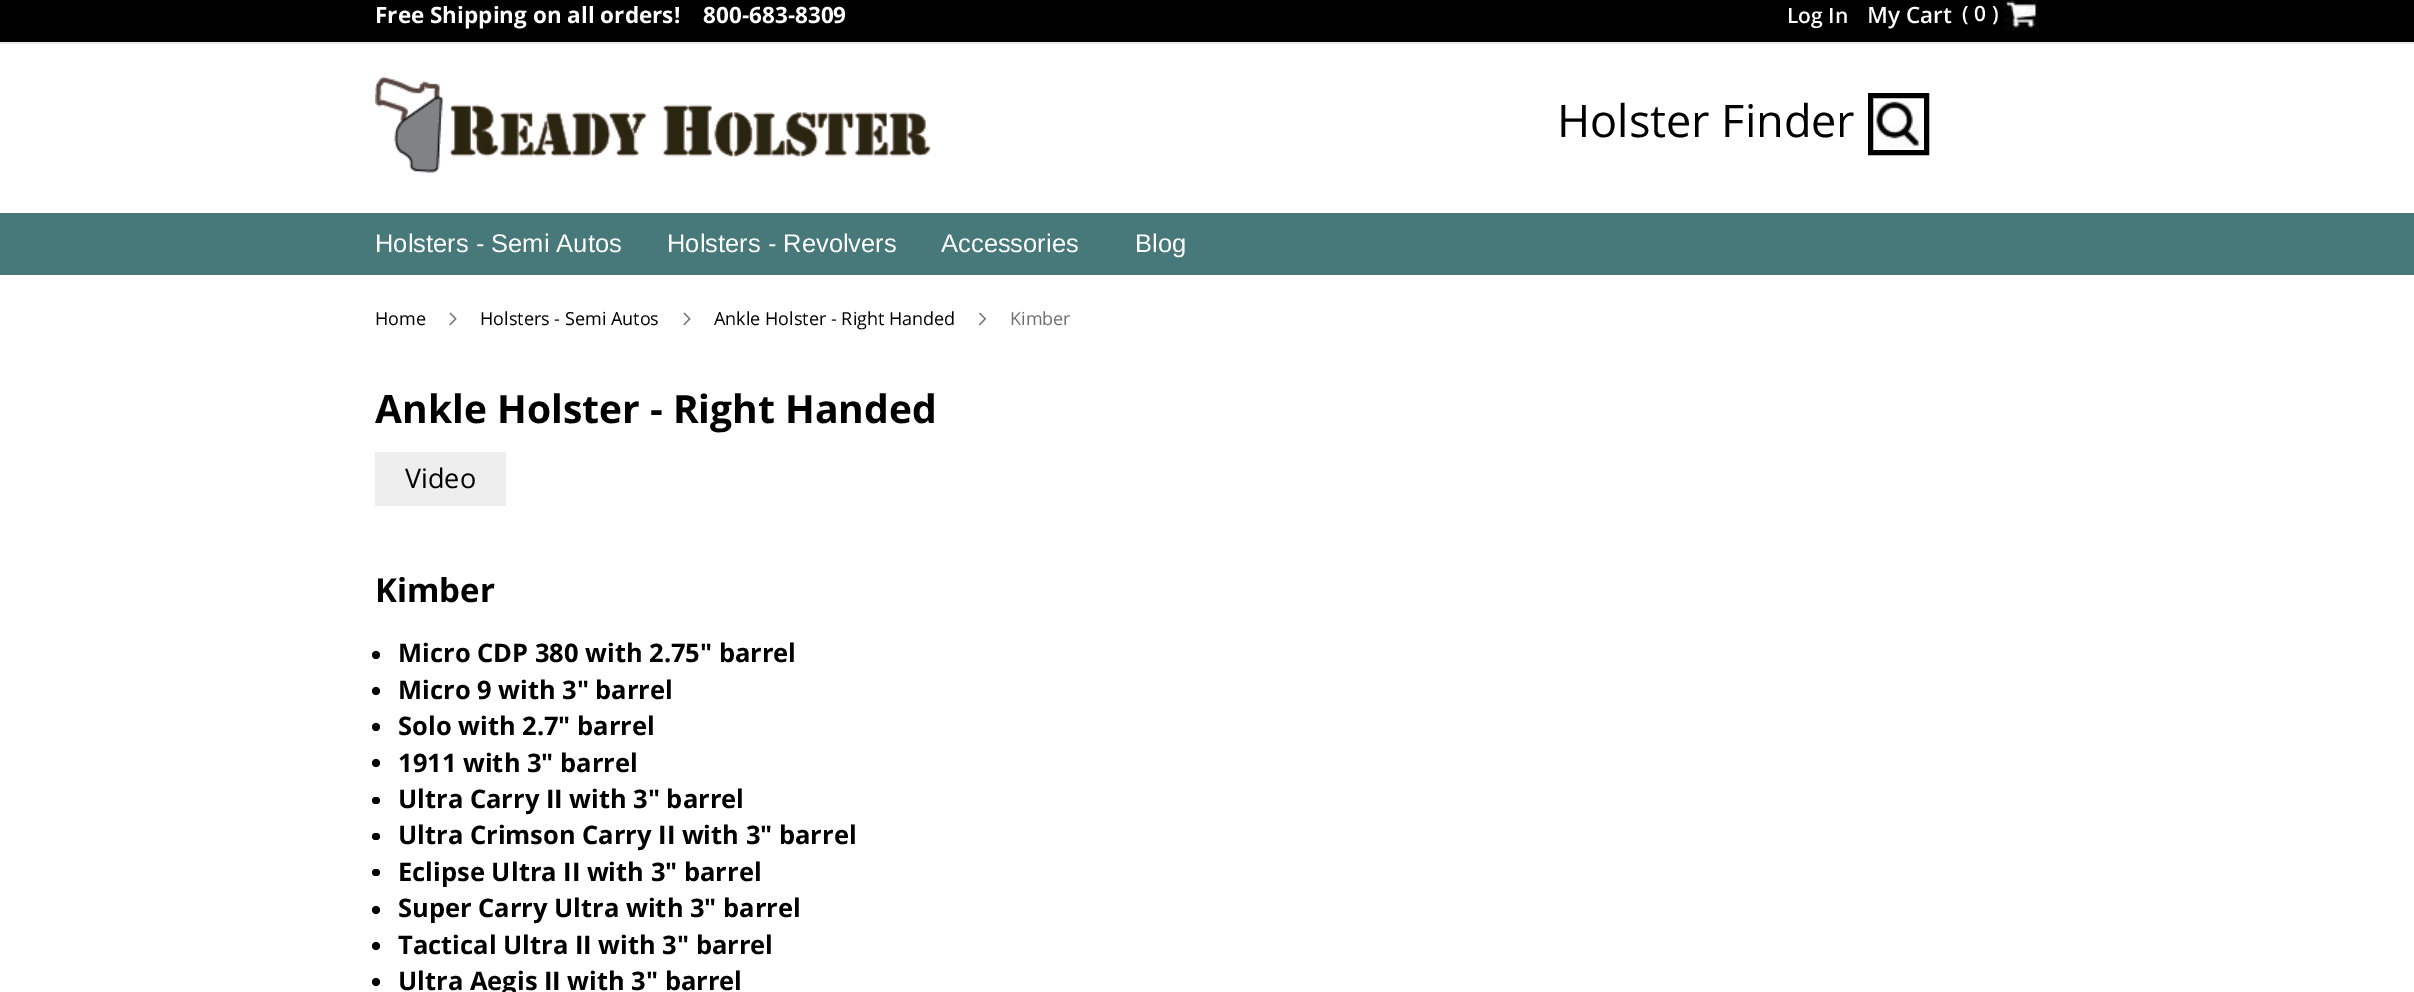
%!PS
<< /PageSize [2414 992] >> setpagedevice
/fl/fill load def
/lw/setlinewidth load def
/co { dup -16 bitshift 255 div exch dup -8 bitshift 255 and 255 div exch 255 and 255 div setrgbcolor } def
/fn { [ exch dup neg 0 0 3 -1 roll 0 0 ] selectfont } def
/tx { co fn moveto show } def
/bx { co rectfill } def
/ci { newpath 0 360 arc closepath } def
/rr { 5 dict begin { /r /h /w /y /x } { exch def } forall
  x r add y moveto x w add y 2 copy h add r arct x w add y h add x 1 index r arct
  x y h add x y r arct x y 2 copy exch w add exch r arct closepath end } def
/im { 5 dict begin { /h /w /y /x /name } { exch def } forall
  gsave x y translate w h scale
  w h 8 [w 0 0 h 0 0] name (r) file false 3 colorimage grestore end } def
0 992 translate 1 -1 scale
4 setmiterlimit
0 0 2414 992 16#FFFFFF bx
0 0 2414 42 16#000000 bx
0 42 2414 2 16#E8E8E8 bx
(media/1.raw) 2002 0 37 30 im
(media/2.raw) 375 76 556 97 im
16#000000 co
5 lw
1870.5 95.5 56 57 rectstroke
(media/3.raw) 1875 100 47 47 im
0 213 2414 62 16#47787A bx
(media/4.raw) 449 312 8 14 im
(media/4.raw) 683 312 8 14 im
(media/5.raw) 978 312 9 14 im
375 452 131 54 16#EEEEEE bx
16#000000 co
376 655 4 ci fl
376 691 4 ci fl
376 727 4 ci fl
376 763 4 ci fl
372 797 8 7 3.5 rr fl
372 833 8 7 3.5 rr fl
372 869 8 7 3.5 rr fl
376 910 4 ci fl
376 946 4 ci fl
376 982 4 ci fl
(Free Shipping on all orders!    800-683-8309) 375 23 /OpenSans-Bold 22.5 16#FFFFFF tx
(Log In) 1787 23 /OpenSans-SemiBold 21 16#FFFFFF tx
(My Cart) 1867 23 /OpenSans-SemiBold 22.5 16#FFFFFF tx
(\( 0 \)) 1962 21 /OpenSans-SemiBold 21 16#FFFFFF tx
(Holster Finder) 1557 137 /OpenSans-Regular 45 16#000000 tx
(Holsters - Semi Autos) 375 252 /LiberationSans-Regular 25.5 16#FFFFFF tx
(Holsters - Revolvers) 667 252 /LiberationSans-Regular 25.5 16#FFFFFF tx
(Accessories) 941 252 /LiberationSans-Regular 25.5 16#FFFFFF tx
(Blog) 1135 252 /LiberationSans-Regular 25.5 16#FFFFFF tx
(Home) 375 325 /OpenSans-Regular 18 16#000000 tx
(Holsters - Semi Autos) 480 325 /OpenSans-Regular 18 16#000000 tx
(Ankle Holster - Right Handed) 714 325 /OpenSans-Regular 18 16#000000 tx
(Kimber) 1010 325 /OpenSans-Regular 18 16#707070 tx
(Ankle Holster - Right Handed) 375 423 /OpenSans-Bold 39 16#000000 tx
(Video) 405 488 /OpenSans-Regular 27 16#000000 tx
(Kimber) 375 602 /OpenSans-Bold 33 16#000000 tx
(Micro CDP 380 with 2.75" barrel) 398 662 /OpenSans-Bold 25.5 16#000000 tx
(Micro 9 with 3" barrel) 398 699 /OpenSans-Bold 25.5 16#000000 tx
(Solo with 2.7" barrel) 398 735 /OpenSans-Bold 25.5 16#000000 tx
(1911 with 3" barrel) 398 772 /OpenSans-Bold 25.5 16#000000 tx
(Ultra Carry II with 3" barrel) 398 808 /OpenSans-Bold 25.5 16#000000 tx
(Ultra Crimson Carry II with 3" barrel) 398 844 /OpenSans-Bold 25.5 16#000000 tx
(Eclipse Ultra II with 3" barrel) 398 881 /OpenSans-Bold 25.5 16#000000 tx
(Super Carry Ultra with 3" barrel) 398 917 /OpenSans-Bold 25.5 16#000000 tx
(Tactical Ultra II with 3" barrel) 398 954 /OpenSans-Bold 25.5 16#000000 tx
(Ultra Aegis II with 3" barrel) 398 990 /OpenSans-Bold 25.5 16#000000 tx
showpage
